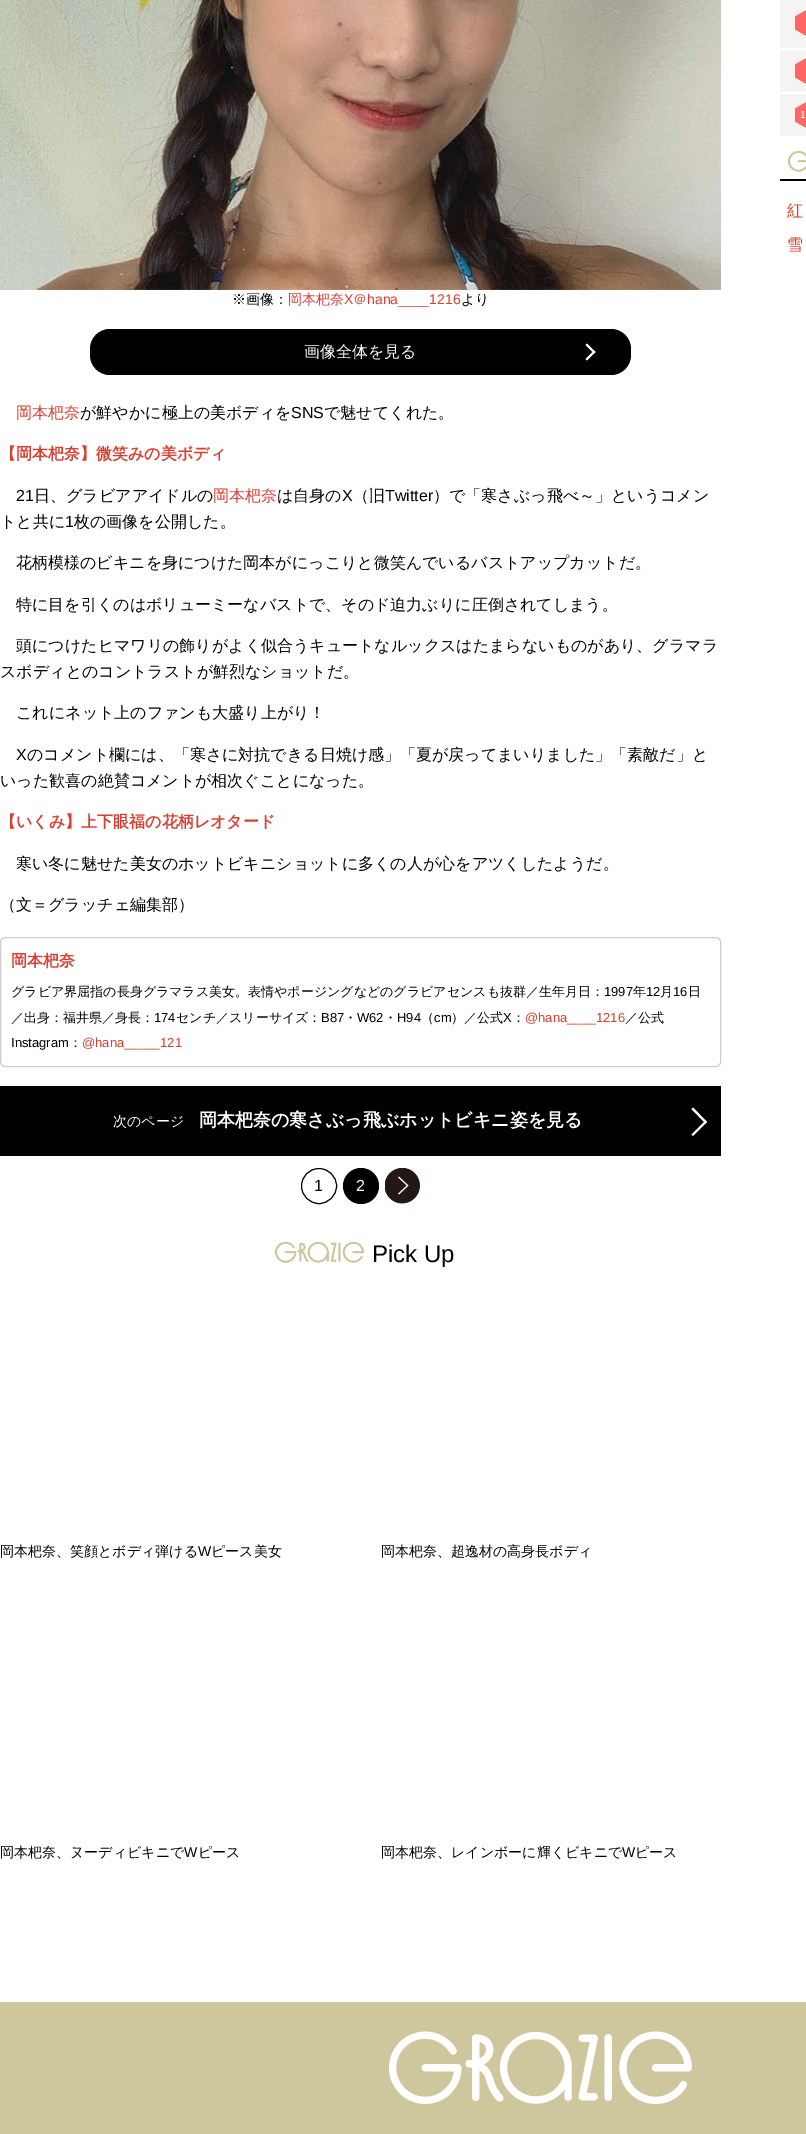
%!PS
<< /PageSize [806 2134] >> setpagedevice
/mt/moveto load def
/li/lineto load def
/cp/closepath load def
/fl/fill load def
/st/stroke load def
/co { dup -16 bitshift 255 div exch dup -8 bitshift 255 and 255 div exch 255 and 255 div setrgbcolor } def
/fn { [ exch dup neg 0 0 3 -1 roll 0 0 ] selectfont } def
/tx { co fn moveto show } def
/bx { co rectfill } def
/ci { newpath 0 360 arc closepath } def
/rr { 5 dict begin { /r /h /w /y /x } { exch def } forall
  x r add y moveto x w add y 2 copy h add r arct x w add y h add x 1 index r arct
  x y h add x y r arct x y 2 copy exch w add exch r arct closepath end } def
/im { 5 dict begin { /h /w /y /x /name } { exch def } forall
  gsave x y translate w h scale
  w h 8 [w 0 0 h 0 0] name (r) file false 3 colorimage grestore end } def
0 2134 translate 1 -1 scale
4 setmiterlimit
0 0 806 2134 16#FFFFFF bx
780 0 26 48 16#F4F4F4 bx
16#FF6666 co
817.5 29.5 mt 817.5 16.5 li 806.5 10 li 795 16.5 li 795 29.5 li 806.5 36 li cp fl
780 50 26 42 16#F4F4F4 bx
16#FF6666 co
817.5 77.5 mt 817.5 64.5 li 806.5 58 li 795 64.5 li 795 77.5 li 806.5 84 li cp fl
780 94 26 42 16#F4F4F4 bx
16#FF6666 co
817.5 121.5 mt 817.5 108.5 li 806.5 102 li 795 108.5 li 795 121.5 li 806.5 128 li cp fl
780 179 26 2 16#000000 bx
(media/1.raw) 787 150 19 22 im
(media/2.raw) 0 0 721 290 im
90 329 541 46 20 rr fl
16#FFFFFF co
585.5 345 mt 587 343.5 li 595.5 352 li 594 353.5 li cp fl
585.5 359 mt 594 350.5 li 595.5 352 li 587 360.5 li cp fl
16#CCCCCC co
.5 937.5 720 129 4.5 rr st
0 1086 721 70 16#000000 bx
16#FFFFFF co
693 1107.5 mt 707 1122 li 705.5 1123.5 li 691.5 1109 li cp fl
705.5 1120.5 mt 707 1122 li 693 1136 li 691.5 1134.5 li cp fl
16#000000 co
319 1186 17.5 ci st
361 1186 18 ci fl
(media/3.raw) 385 1168 35 36 im
(media/4.raw) 274 1241 91 22 im
0 2002 806 132 16#CEC79D bx
(media/5.raw) 389 2031 303 73 im
(1) 800 118 /LiberationSans-Regular 10 16#FFFFFF tx
(紅) 787 216 /WenQuanYiZenHei-Medium 16 16#D93E31 tx
(雪) 787 250 /WenQuanYiZenHei-Medium 16 16#D93E31 tx
(※画像：) 232 304 /WenQuanYiZenHei-Medium 14 16#000000 tx
(岡本杷奈) 288 304 /WenQuanYiZenHei-Medium 14 16#D93E31 tx
(X) 344 304 /LiberationSans-Regular 14 16#D93E31 tx
(＠) 353 304 /WenQuanYiZenHei-Medium 14 16#D93E31 tx
(hana____1216) 367 304 /LiberationSans-Regular 14 16#D93E31 tx
(より) 461 304 /WenQuanYiZenHei-Medium 14 16#000000 tx
(画像全体を見る) 304 357 /WenQuanYiZenHei-Medium 16 16#FFFFFF tx
(岡本杷奈) 16 418 /WenQuanYiZenHei-Medium 16 16#D93E31 tx
(が鮮やかに極上の美ボディを) 80 418 /WenQuanYiZenHei-Medium 16 16#000000 tx
(SNS) 291 418 /LiberationSans-Regular 16 16#000000 tx
(で魅せてくれた。) 324 418 /WenQuanYiZenHei-Medium 16 16#000000 tx
(【岡本杷奈】微笑みの美ボディ) 0 459 /WenQuanYiZenHei-Bold 16 16#D93E31 tx
(21) 16 501 /LiberationSans-Regular 16 16#000000 tx
(日、グラビアアイドルの) 34 501 /WenQuanYiZenHei-Medium 16 16#000000 tx
(岡本杷奈) 213 501 /WenQuanYiZenHei-Medium 16 16#D93E31 tx
(は自身の) 277 501 /WenQuanYiZenHei-Medium 16 16#000000 tx
(X) 342 501 /LiberationSans-Regular 16 16#000000 tx
(（旧) 353 501 /WenQuanYiZenHei-Medium 16 16#000000 tx
(Twitter) 385 501 /LiberationSans-Regular 16 16#000000 tx
(）で「寒さぶっ飛べ～」というコメン) 433 501 /WenQuanYiZenHei-Medium 16 16#000000 tx
(トと共に) 0 527 /WenQuanYiZenHei-Medium 16 16#000000 tx
(1) 65 527 /LiberationSans-Regular 16 16#000000 tx
(枚の画像を公開した。) 74 527 /WenQuanYiZenHei-Medium 16 16#000000 tx
(花柄模様のビキニを身につけた岡本がにっこりと微笑んでいるバストアップカットだ。) 16 568 /WenQuanYiZenHei-Medium 16 16#000000 tx
(特に目を引くのはボリューミーなバストで、そのド迫力ぶりに圧倒されてしまう。) 16 610 /WenQuanYiZenHei-Medium 16 16#000000 tx
(頭につけたヒマワリの飾りがよく似合うキュートなルックスはたまらないものがあり、グラマラ) 16 651 /WenQuanYiZenHei-Medium 16 16#000000 tx
(スボディとのコントラストが鮮烈なショットだ。) 0 677 /WenQuanYiZenHei-Medium 16 16#000000 tx
(これにネット上のファンも大盛り上がり！) 16 718 /WenQuanYiZenHei-Medium 16 16#000000 tx
(X) 16 760 /LiberationSans-Regular 16 16#000000 tx
(のコメント欄には、「寒さに対抗できる日焼け感」「夏が戻ってまいりました」「素敵だ」と) 27 760 /WenQuanYiZenHei-Medium 16 16#000000 tx
(いった歓喜の絶賛コメントが相次ぐことになった。) 0 786 /WenQuanYiZenHei-Medium 16 16#000000 tx
(【いくみ】上下眼福の花柄レオタード) 0 827 /WenQuanYiZenHei-Bold 16 16#D93E31 tx
(寒い冬に魅せた美女のホットビキニショットに多くの人が心をアツくしたようだ。) 16 869 /WenQuanYiZenHei-Medium 16 16#000000 tx
(（文＝グラッチェ編集部）) 0 910 /WenQuanYiZenHei-Medium 16 16#000000 tx
(岡本杷奈) 11 966 /WenQuanYiZenHei-Bold 16 16#D93E31 tx
(グラビア界屈指の長身グラマラス美女。表情やポージングなどのグラビアセンスも抜群／生年月日：) 11 996 /WenQuanYiZenHei-Medium 13 16#000000 tx
(1997) 604 996 /LiberationSans-Regular 13 16#000000 tx
(年) 633 996 /WenQuanYiZenHei-Medium 13 16#000000 tx
(12) 646 996 /LiberationSans-Regular 13 16#000000 tx
(月) 660 996 /WenQuanYiZenHei-Medium 13 16#000000 tx
(16) 673 996 /LiberationSans-Regular 13 16#000000 tx
(日) 688 996 /WenQuanYiZenHei-Medium 13 16#000000 tx
(／出身：福井県／身長：) 11 1022 /WenQuanYiZenHei-Medium 13 16#000000 tx
(174) 154 1022 /LiberationSans-Regular 13 16#000000 tx
(センチ／スリーサイズ：) 176 1022 /WenQuanYiZenHei-Medium 13 16#000000 tx
(B87) 321 1022 /LiberationSans-Regular 13 16#000000 tx
(・) 344 1022 /WenQuanYiZenHei-Medium 13 16#000000 tx
(W62) 357 1022 /LiberationSans-Regular 13 16#000000 tx
(・) 384 1022 /WenQuanYiZenHei-Medium 13 16#000000 tx
(H94) 397 1022 /LiberationSans-Regular 13 16#000000 tx
(（) 421 1022 /WenQuanYiZenHei-Medium 13 16#000000 tx
(cm) 434 1022 /LiberationSans-Regular 13 16#000000 tx
(）／公式) 451 1022 /WenQuanYiZenHei-Medium 13 16#000000 tx
(X) 503 1022 /LiberationSans-Regular 13 16#000000 tx
(：) 512 1022 /WenQuanYiZenHei-Medium 13 16#000000 tx
(@hana____1216) 525 1022 /LiberationSans-Regular 13 16#D93E31 tx
(／公式) 625 1022 /WenQuanYiZenHei-Medium 13 16#000000 tx
(Instagram) 11 1047 /LiberationSans-Regular 13 16#000000 tx
(：) 69 1047 /WenQuanYiZenHei-Medium 13 16#000000 tx
(@hana_____121) 82 1047 /LiberationSans-Regular 13 16#D93E31 tx
(次のページ) 113 1126 /WenQuanYiZenHei-Medium 14 16#FFFFFF tx
(岡本杷奈の寒さぶっ飛ぶホットビキニ姿を見る) 199 1126 /WenQuanYiZenHei-Bold 18 16#FFFFFF tx
(1) 314 1191 /LiberationSans-Regular 16 16#000000 tx
(2) 356 1191 /LiberationSans-Regular 16 16#FFFFFF tx
(Pick Up) 372 1262 /LiberationSans-Regular 24 16#000000 tx
(岡本杷奈、笑顔とボディ弾ける) 0 1556 /WenQuanYiZenHei-Medium 14 16#000000 tx
(W) 198 1556 /LiberationSans-Regular 14 16#000000 tx
(ピース美女) 211 1556 /WenQuanYiZenHei-Medium 14 16#000000 tx
(岡本杷奈、超逸材の高身長ボディ) 381 1556 /WenQuanYiZenHei-Medium 14 16#000000 tx
(岡本杷奈、ヌーディビキニで) 0 1857 /WenQuanYiZenHei-Medium 14 16#000000 tx
(W) 184 1857 /LiberationSans-Regular 14 16#000000 tx
(ピース) 198 1857 /WenQuanYiZenHei-Medium 14 16#000000 tx
(岡本杷奈、レインボーに輝くビキニで) 381 1857 /WenQuanYiZenHei-Medium 14 16#000000 tx
(W) 622 1857 /LiberationSans-Regular 14 16#000000 tx
(ピース) 635 1857 /WenQuanYiZenHei-Medium 14 16#000000 tx
showpage
